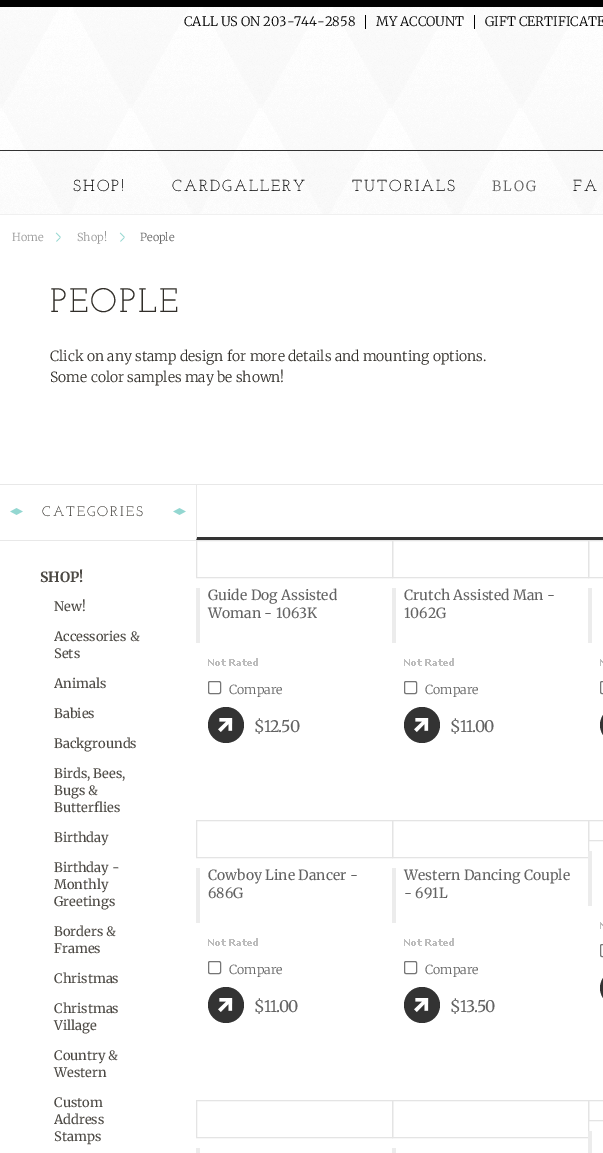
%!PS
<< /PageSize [603 1153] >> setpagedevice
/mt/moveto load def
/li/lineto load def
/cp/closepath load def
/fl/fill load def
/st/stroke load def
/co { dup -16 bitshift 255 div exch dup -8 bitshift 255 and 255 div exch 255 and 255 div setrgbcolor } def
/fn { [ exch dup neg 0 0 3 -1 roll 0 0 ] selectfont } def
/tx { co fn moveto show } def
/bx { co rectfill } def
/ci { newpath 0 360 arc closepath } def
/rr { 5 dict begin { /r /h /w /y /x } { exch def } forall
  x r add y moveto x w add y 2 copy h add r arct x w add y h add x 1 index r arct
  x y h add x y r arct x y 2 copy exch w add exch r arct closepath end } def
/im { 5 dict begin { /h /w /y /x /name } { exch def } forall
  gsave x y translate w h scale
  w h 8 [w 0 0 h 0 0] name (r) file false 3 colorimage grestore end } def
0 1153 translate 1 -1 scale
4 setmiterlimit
0 0 603 1153 16#FFFFFF bx
(media/1.raw) 0 7 603 207 im
0 0 603 7 16#000000 bx
365 15 1 14 16#000000 bx
474 15 1 14 16#000000 bx
0 150 603 1 16#333333 bx
0 214 603 1 16#F0F0F0 bx
(media/2.raw) 55 232 6 10 im
(media/2.raw) 119 232 6 10 im
0 484 603 1 16#E8E8E8 bx
(media/3.raw) 10 508 13 7 im
0 540 196 1 16#E8E8E8 bx
(media/3.raw) 173 508 13 7 im
16#333333 co
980 540 mt 196 540 li 197 537 li 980 537 li cp fl
16#E8E8E8 co
196 540 mt 196 485 li 197 485 li 197 537 li cp fl
16#E4E4E4 co
196.5 540.5 196 37 rectstroke
196 588 4 55 16#ECECEC bx
(media/4.raw) 208 658 50 8 im
16#767676 co
208.5 681.5 12 12 1.5 rr st
16#333333 co
226 725 18 ci fl
(media/5.raw) 218 718 15 14 im
16#E4E4E4 co
392.5 540.5 196 37 rectstroke
392 588 4 55 16#ECECEC bx
(media/4.raw) 404 658 50 8 im
16#767676 co
404.5 681.5 12 12 1.5 rr st
16#333333 co
422 725 18 ci fl
(media/5.raw) 414 718 15 14 im
16#E4E4E4 co
588.5 540.5 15 37 rectstroke
588 588 4 55 16#ECECEC bx
(media/6.raw) 600 659 3 7 im
16#767676 co
600.5 681.5 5 12 1.5 rr st
16#333333 co
600 707 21 36 18 rr fl
16#E4E4E4 co
196.5 820.5 196 37 rectstroke
196 868 4 55 16#ECECEC bx
(media/4.raw) 208 938 50 8 im
16#767676 co
208.5 961.5 12 12 1.5 rr st
16#333333 co
226 1005 18 ci fl
(media/5.raw) 218 998 15 14 im
16#E4E4E4 co
392.5 820.5 196 37 rectstroke
392 868 4 55 16#ECECEC bx
(media/4.raw) 404 938 50 8 im
16#767676 co
404.5 961.5 12 12 1.5 rr st
16#333333 co
422 1005 18 ci fl
(media/5.raw) 414 998 15 14 im
16#E4E4E4 co
588.5 820.5 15 20 rectstroke
588 851 4 55 16#ECECEC bx
(media/6.raw) 600 922 3 7 im
16#767676 co
600.5 944.5 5 12 1.5 rr st
16#333333 co
600 970 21 36 18 rr fl
16#E4E4E4 co
196.5 1100.5 196 37 rectstroke
196 1148 4 5 16#ECECEC bx
16#E4E4E4 co
392.5 1100.5 196 37 rectstroke
392 1148 4 5 16#ECECEC bx
16#E4E4E4 co
588.5 1100.5 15 20 rectstroke
588 1131 4 22 16#ECECEC bx
(CALL US ON 203-744-2858) 184 26 /Merriweather-Light 13 16#000000 tx
(MY ACCOUNT) 376 26 /Merriweather-Light 13 16#000000 tx
(GIFT CERTIFICATE) 485 26 /Merriweather-Light 13 16#000000 tx
/JosefinSlab-Regular 16 fn
73 191 mt 2 0 (SHOP!) ashow
172 191 mt 2 0 (CARDGALLERY) ashow
352 191 mt 2 0 (TUTORIALS) ashow
/Merriweather-Light 14 fn
16#636363 co
492 191 mt 2 0 (BLOG) ashow
/JosefinSlab-Regular 16 fn
16#000000 co
573 191 mt 2 0 (FA) ashow
(Home) 12 241 /Merriweather-Light 11 16#999999 tx
(Shop!) 77 241 /Merriweather-Light 11 16#999999 tx
(People) 140 241 /Merriweather-Light 11 16#636363 tx
/JosefinSlab-Regular 34 fn
16#312E29 co
50 312 mt 2 0 (PEOPLE) ashow
(Click on any stamp design for more details and mounting options.) 50 361 /Merriweather-Light 14 16#312E29 tx
(Some color samples may be shown!) 50 382 /Merriweather-Light 14 16#312E29 tx
/JosefinSlab-Regular 14 fn
42 516 mt 2 0 (CATEGORIES) ashow
(SHOP!) 40 582 /Merriweather-Bold 14 16#4C4944 tx
(New!) 54 611 /Merriweather-Regular 13 16#4C4944 tx
(Accessories &) 54 641 /Merriweather-Regular 13 16#4C4944 tx
(Sets) 54 658 /Merriweather-Regular 13 16#4C4944 tx
(Animals) 54 688 /Merriweather-Regular 13 16#4C4944 tx
(Babies) 54 718 /Merriweather-Regular 13 16#4C4944 tx
(Backgrounds) 54 748 /Merriweather-Regular 13 16#4C4944 tx
(Birds, Bees,) 54 778 /Merriweather-Regular 13 16#4C4944 tx
(Bugs &) 54 795 /Merriweather-Regular 13 16#4C4944 tx
(Butterflies) 54 812 /Merriweather-Regular 13 16#4C4944 tx
(Birthday) 54 842 /Merriweather-Regular 13 16#4C4944 tx
(Birthday -) 54 872 /Merriweather-Regular 13 16#4C4944 tx
(Monthly) 54 889 /Merriweather-Regular 13 16#4C4944 tx
(Greetings) 54 906 /Merriweather-Regular 13 16#4C4944 tx
(Borders &) 54 936 /Merriweather-Regular 13 16#4C4944 tx
(Frames) 54 953 /Merriweather-Regular 13 16#4C4944 tx
(Christmas) 54 983 /Merriweather-Regular 13 16#4C4944 tx
(Christmas) 54 1013 /Merriweather-Regular 13 16#4C4944 tx
(Village) 54 1030 /Merriweather-Regular 13 16#4C4944 tx
(Country &) 54 1060 /Merriweather-Regular 13 16#4C4944 tx
(Western) 54 1077 /Merriweather-Regular 13 16#4C4944 tx
(Custom) 54 1107 /Merriweather-Regular 13 16#4C4944 tx
(Address) 54 1124 /Merriweather-Regular 13 16#4C4944 tx
(Stamps) 54 1141 /Merriweather-Regular 13 16#4C4944 tx
(Guide Dog Assisted) 208 600 /Merriweather-Regular 14 16#636363 tx
(Woman - 1063K) 208 618 /Merriweather-Regular 14 16#636363 tx
(Compare) 229 694 /Merriweather-Light 12.5 16#636363 tx
/Merriweather-Regular 16 fn
254 732 mt -1 0 ($12.50) ashow
(Crutch Assisted Man -) 404 600 /Merriweather-Regular 14 16#636363 tx
(1062G) 404 618 /Merriweather-Regular 14 16#636363 tx
(Compare) 425 694 /Merriweather-Light 12.5 16#636363 tx
/Merriweather-Regular 16 fn
450 732 mt -1 0 ($11.00) ashow
(Cowboy Line Dancer -) 208 880 /Merriweather-Regular 14 16#636363 tx
(686G) 208 898 /Merriweather-Regular 14 16#636363 tx
(Compare) 229 974 /Merriweather-Light 12.5 16#636363 tx
/Merriweather-Regular 16 fn
254 1012 mt -1 0 ($11.00) ashow
(Western Dancing Couple) 404 880 /Merriweather-Regular 14 16#636363 tx
(- 691L) 404 898 /Merriweather-Regular 14 16#636363 tx
(Compare) 425 974 /Merriweather-Light 12.5 16#636363 tx
/Merriweather-Regular 16 fn
450 1012 mt -1 0 ($13.50) ashow
showpage
